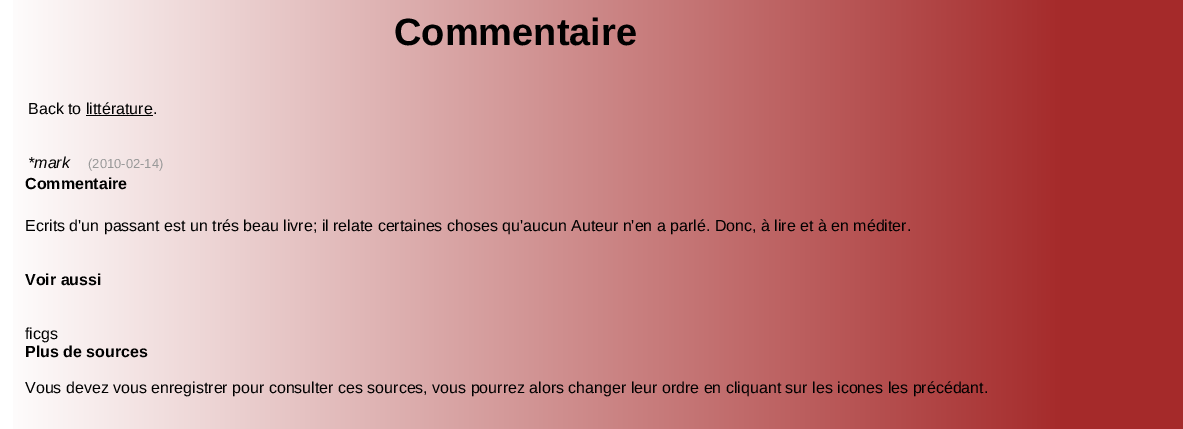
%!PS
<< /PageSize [1183 429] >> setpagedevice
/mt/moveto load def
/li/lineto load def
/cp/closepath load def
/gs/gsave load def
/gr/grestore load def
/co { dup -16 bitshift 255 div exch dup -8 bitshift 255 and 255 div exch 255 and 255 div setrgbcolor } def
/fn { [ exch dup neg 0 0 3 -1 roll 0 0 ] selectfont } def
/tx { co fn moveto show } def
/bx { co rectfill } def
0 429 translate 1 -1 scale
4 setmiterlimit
0 0 1183 429 16#FFFFFF bx
gs 13 0 mt 1183 0 li 1183 429 li 13 429 li cp clip newpath
<< /ShadingType 2 /ColorSpace /DeviceRGB /Coords [0 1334 1183 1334] /Extend [true true] /Function << /FunctionType 3 /Domain [0 1] /Functions [<< /FunctionType 2 /Domain [0 1] /C0 [1 1 1] /C1 [.647 .165 .165] /N 1 >> << /FunctionType 2 /Domain [0 1] /C0 [.647 .165 .165] /C1 [.647 .165 .165] /N 1 >>] /Bounds [.9] /Encode [0 1 0 1] >> >> shfill gr
86 115 67 1 16#000000 bx
(Commentaire) 394 45 /LiberationSans-Bold 38 16#000000 tx
(Back to littérature.) 28 114 /LiberationSans-Regular 16 16#000000 tx
(*mark) 28 168 /LiberationSans-Italic 16 16#000000 tx
(\(2010-02-14\)) 88 168 /LiberationSans-Regular 13 16#999999 tx
(Commentaire) 25 189 /LiberationSans-Bold 16 16#000000 tx
(Ecrits d'un passant est un trés beau livre; il relate certaines choses qu'aucun Auteur n'en a parlé. Donc, à lire et à en méditer.) 25 231 /LiberationSans-Regular 16 16#000000 tx
(Voir aussi) 25 285 /LiberationSans-Bold 16 16#000000 tx
(ficgs) 25 339 /LiberationSans-Regular 16 16#000000 tx
(Plus de sources) 25 357 /LiberationSans-Bold 16 16#000000 tx
(Vous devez vous enregistrer pour consulter ces sources, vous pourrez alors changer leur ordre en cliquant sur les icones les précédant.) 25 393 /LiberationSans-Regular 16 16#000000 tx
showpage
